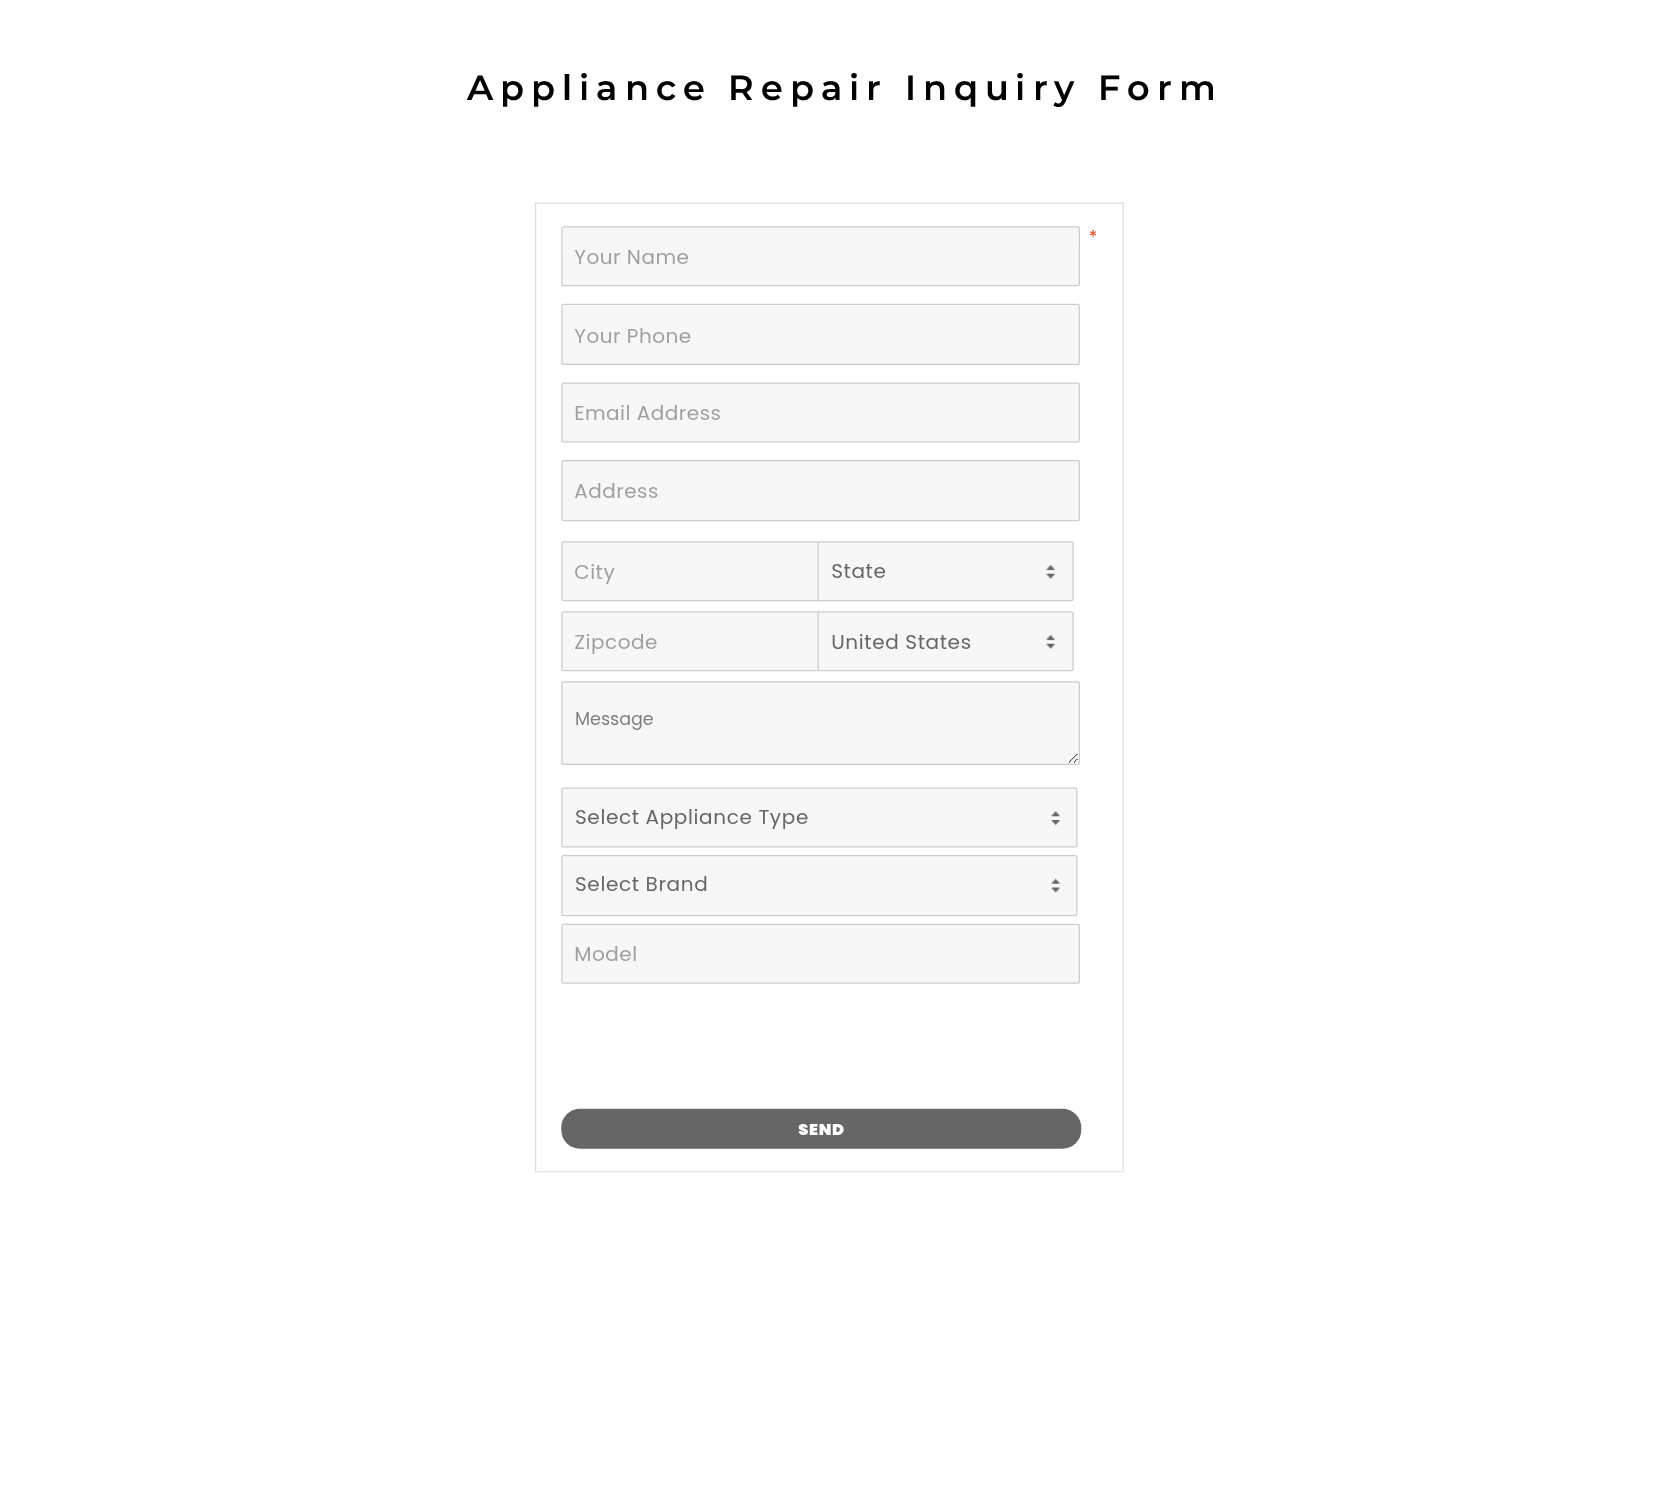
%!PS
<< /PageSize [1668 1509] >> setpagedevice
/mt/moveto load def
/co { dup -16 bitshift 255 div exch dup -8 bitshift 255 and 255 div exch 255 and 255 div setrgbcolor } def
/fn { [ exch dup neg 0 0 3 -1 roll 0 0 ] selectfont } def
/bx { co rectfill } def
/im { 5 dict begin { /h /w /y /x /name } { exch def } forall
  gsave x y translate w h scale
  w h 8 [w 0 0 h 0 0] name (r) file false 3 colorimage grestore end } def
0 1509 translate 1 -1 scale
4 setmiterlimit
0 0 1668 1509 16#FFFFFF bx
(media/1.raw) 535 202 589 971 im
/Montserrat-Thin 35 fn
16#000000 co
467 100 mt 7 0 (Appliance Repair Inquiry Form) ashow
showpage
